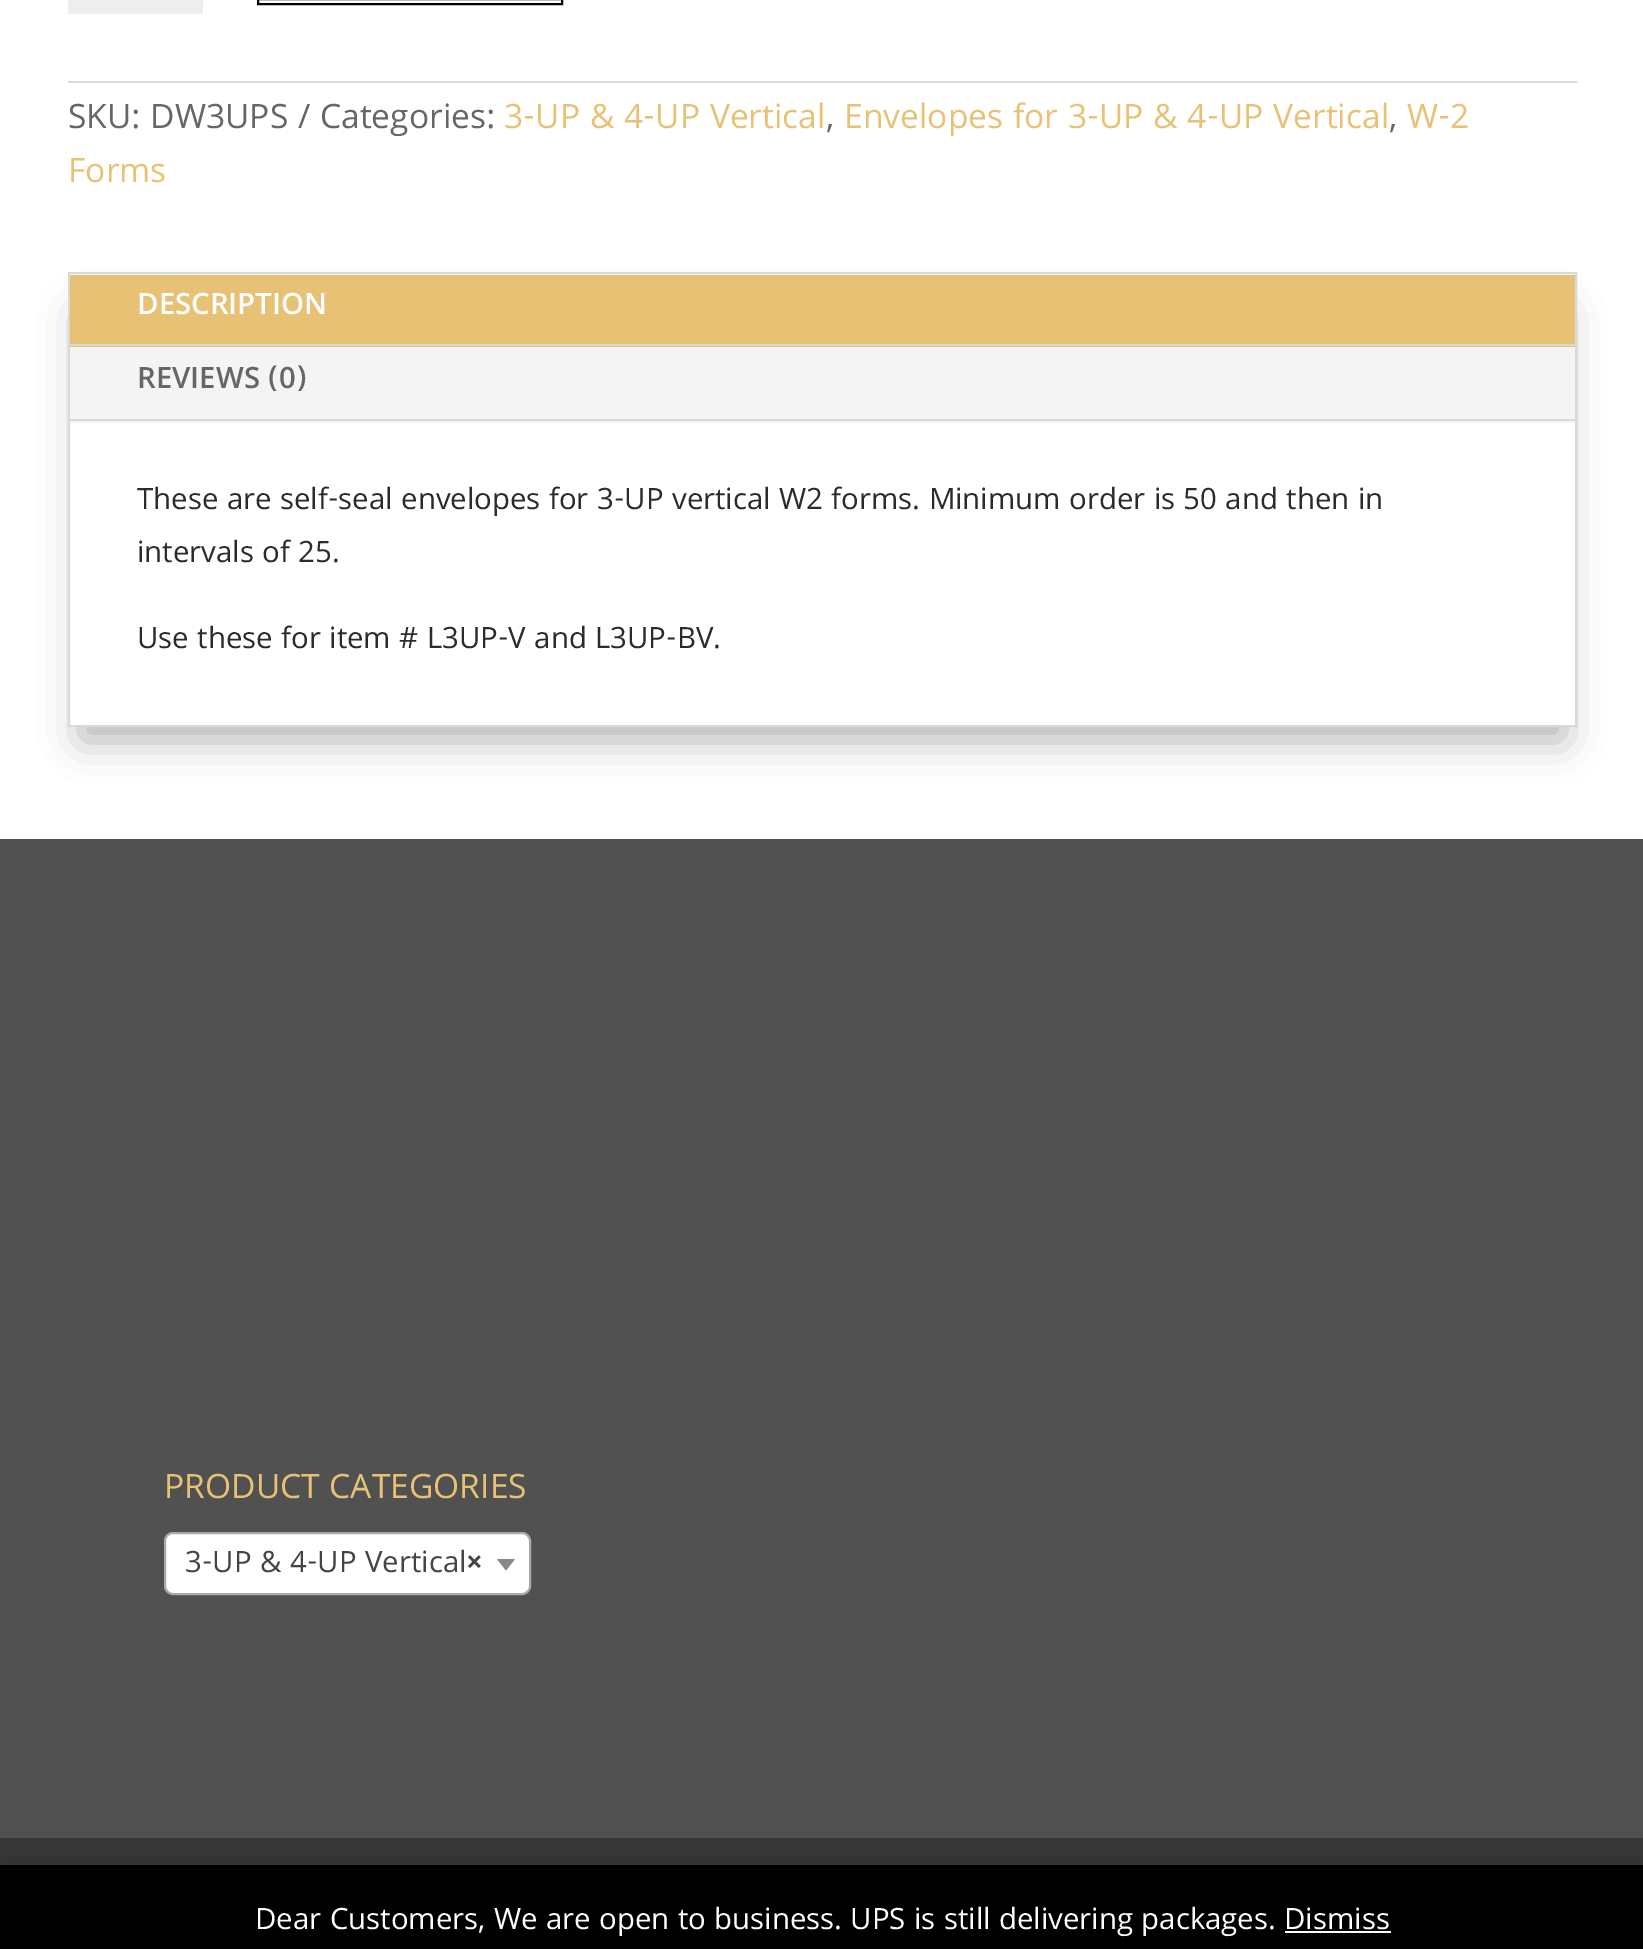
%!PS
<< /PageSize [1643 1949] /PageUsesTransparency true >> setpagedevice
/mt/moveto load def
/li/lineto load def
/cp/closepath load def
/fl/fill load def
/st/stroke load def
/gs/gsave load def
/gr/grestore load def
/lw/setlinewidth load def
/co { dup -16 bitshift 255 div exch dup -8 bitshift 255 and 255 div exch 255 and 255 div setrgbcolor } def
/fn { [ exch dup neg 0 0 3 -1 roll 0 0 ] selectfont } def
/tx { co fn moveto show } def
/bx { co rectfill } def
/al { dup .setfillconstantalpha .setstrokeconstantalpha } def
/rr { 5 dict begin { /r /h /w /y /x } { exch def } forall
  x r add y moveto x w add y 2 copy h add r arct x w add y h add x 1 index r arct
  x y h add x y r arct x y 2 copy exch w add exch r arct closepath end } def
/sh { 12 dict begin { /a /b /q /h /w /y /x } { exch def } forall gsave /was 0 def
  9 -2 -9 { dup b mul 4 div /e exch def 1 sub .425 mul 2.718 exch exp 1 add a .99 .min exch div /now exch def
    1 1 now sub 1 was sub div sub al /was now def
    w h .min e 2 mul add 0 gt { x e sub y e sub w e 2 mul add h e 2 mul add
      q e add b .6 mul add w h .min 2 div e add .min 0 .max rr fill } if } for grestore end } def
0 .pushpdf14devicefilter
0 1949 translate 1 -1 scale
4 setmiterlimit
0 0 1643 1949 16#FFFFFF bx
68 0 135 14 16#EEEEEE bx
16#000000 co
2 lw
258 -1 304 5 rectstroke
68 81 1509 2 16#DADADA bx
gs
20 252 mt 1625 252 li 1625 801 li 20 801 li cp 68 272 mt 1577 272 li 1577 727 li 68 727 li cp eoclip newpath
16#000000 co
81 313 1483 427 0 20 .3 sh
gr
16#D9D9D9 co
69 273 1507 453 rectstroke
70 347 1505 76 16#F4F4F4 bx
70 275 1505 72 16#E7C274 bx
70 344 1505 2 16#D9D9D9 bx
70 419 1505 2 16#D9D9D9 bx
0 839 1643 999 16#515151 bx
16#FFFFFF co
165 1533 365 61 8 rr gs fl gr
16#AAAAAA co
st
16#888888 co
497 1559 mt 515 1559 li 506 1570.5 li cp fl
0 1838 1643 27 16#373737 bx
16#000000 co
0 1868 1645 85 0 16 .2 sh
0 1865 1643 84 16#000000 bx
1285 1931 106 2 16#FFFFFF bx
(SKU: DW3UPS / Categories:) 68 128 /Khula-Regular 36 16#666666 tx
(3-UP & 4-UP Vertical) 504 128 /Khula-Regular 36 16#E7C274 tx
(,) 826 128 /Khula-Regular 36 16#666666 tx
(Envelopes for 3-UP & 4-UP Vertical) 844 128 /Khula-Regular 36 16#E7C274 tx
(,) 1389 128 /Khula-Regular 36 16#666666 tx
(W-2) 1407 128 /Khula-Regular 36 16#E7C274 tx
(Forms) 68 182 /Khula-Regular 36 16#E7C274 tx
(DESCRIPTION) 137 314 /Khula-SemiBold 31.5 16#FFFFFF tx
(REVIEWS \(0\)) 137 388 /Khula-SemiBold 31.5 16#666666 tx
(These are self-seal envelopes for 3-UP vertical W2 forms. Minimum order is 50 and then in) 137 509 /Khula-Regular 31.5 16#2A2B2C tx
(intervals of 25.) 137 562 /Khula-Regular 31.5 16#2A2B2C tx
(Use these for item # L3UP-V and L3UP-BV.) 137 648 /Khula-Regular 31.5 16#2A2B2C tx
(PRODUCT CATEGORIES) 164 1498 /Khula-Regular 36 16#E7C274 tx
(3-UP & 4-UP Vertical) 185 1572 /Khula-Regular 31.5 16#444444 tx
(×) 466 1572 /Khula-Bold 31.5 16#444444 tx
(Dear Customers, We are open to business. UPS is still delivering packages. Dismiss) 255 1929 /Khula-Regular 31.5 16#FFFFFF tx
.poppdf14devicefilter showpage
